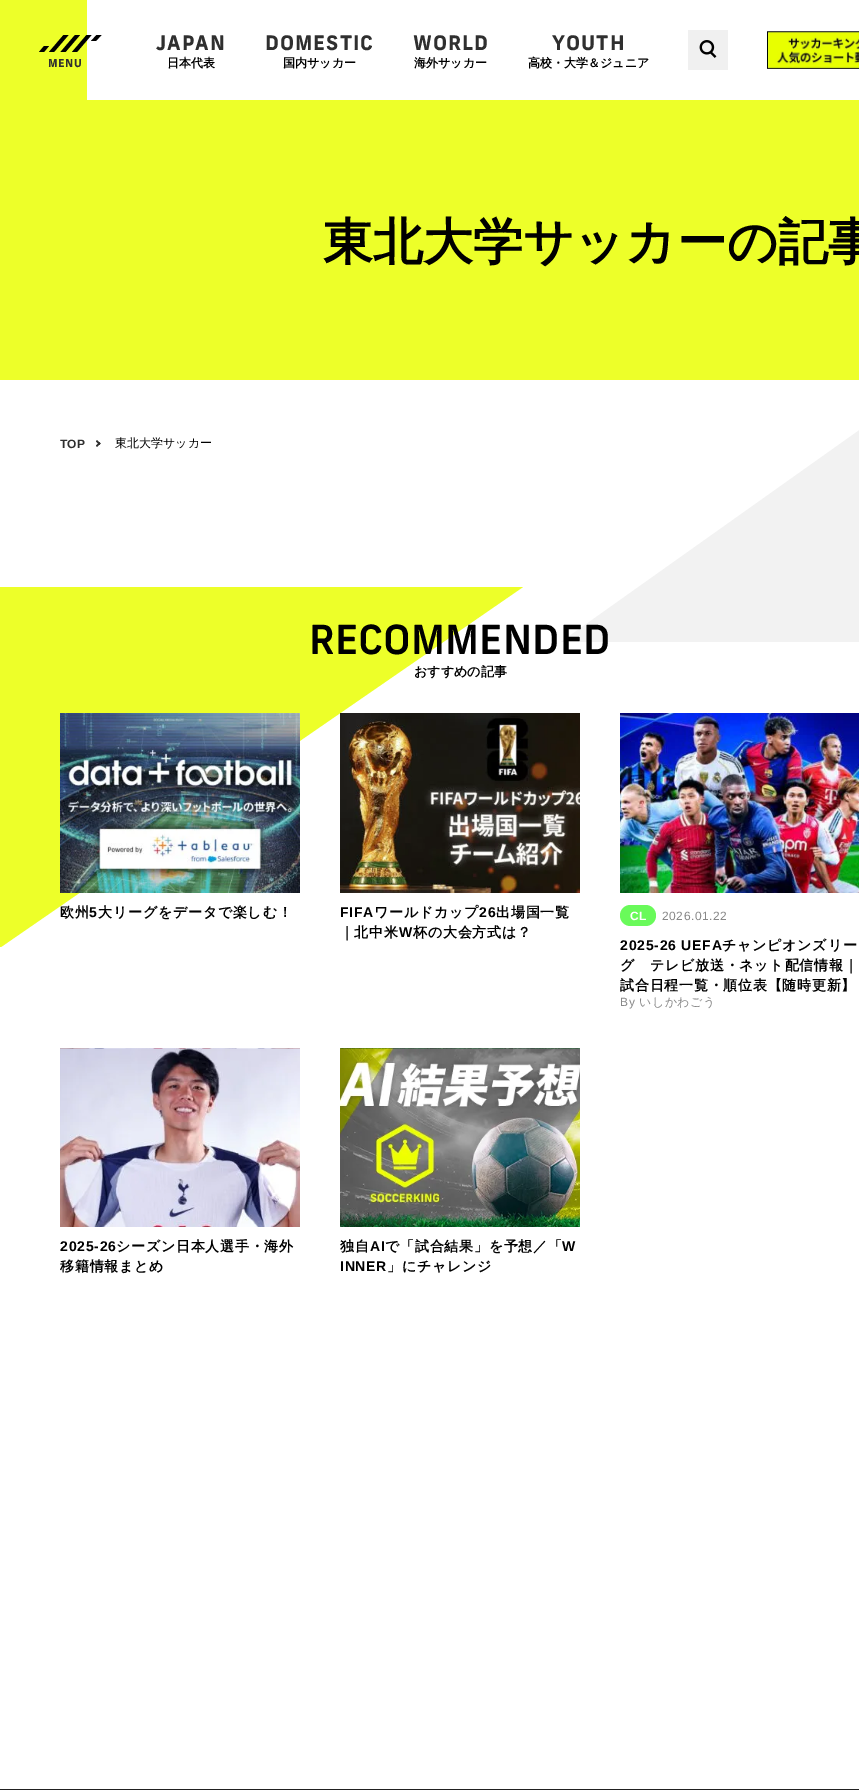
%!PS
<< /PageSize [859 1790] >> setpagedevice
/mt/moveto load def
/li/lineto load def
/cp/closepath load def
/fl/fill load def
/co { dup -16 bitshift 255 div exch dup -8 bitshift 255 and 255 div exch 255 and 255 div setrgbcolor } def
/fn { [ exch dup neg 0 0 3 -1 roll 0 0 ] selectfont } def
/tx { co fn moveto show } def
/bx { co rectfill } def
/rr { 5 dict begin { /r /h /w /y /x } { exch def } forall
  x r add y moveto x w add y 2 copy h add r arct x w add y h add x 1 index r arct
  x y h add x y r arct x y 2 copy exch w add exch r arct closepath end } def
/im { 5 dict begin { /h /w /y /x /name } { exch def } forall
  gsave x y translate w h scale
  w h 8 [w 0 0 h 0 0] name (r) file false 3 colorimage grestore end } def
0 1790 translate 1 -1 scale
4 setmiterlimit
0 0 859 1790 16#FFFFFF bx
0 0 87 100 16#EDFF29 bx
16#000000 co
63.5 35 mt 68.5 35 li 54 52 li 49 52 li cp 44 46 mt 49 46 li 44 52 li 39 52 li cp fl
75 35 mt 80 35 li 65.5 52 li 60.5 52 li cp fl
86.5 35 mt 91.5 35 li 77 52 li 72 52 li cp fl
96.5 35 mt 101.5 35 li 96 41 li 91 41 li cp fl
688 30 40 40 16#F0F0F0 bx
(media/1.raw) 699 40 18 18 im
(media/2.raw) 767 31 92 38 im
0 100 859 280 16#EDFF29 bx
16#2F2F2F co
97 440 mt 100.5 443.5 li 99.5 445 li 96 441.5 li cp fl
99.5 442 mt 100.5 443.5 li 97 447 li 96 445.5 li cp fl
16#F2F2F2 co
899 402 mt 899 642 li 561 642 li eofill
16#EDFF29 co
-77 587 mt 523 587 li 1 947 li -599 947 li cp eofill
(media/3.raw) 60 713 240 180 im
(media/4.raw) 340 713 240 180 im
(media/5.raw) 620 713 239 180 im
16#69FA5A co
620 905 36 21 10.5 rr fl
(media/6.raw) 60 1048 240 179 im
(media/7.raw) 340 1048 240 179 im
0 1789 859 1 16#212121 bx
/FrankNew-Bold 11 fn
16#2F2F2F co
48 67 mt .5 0 (MENU) ashow
/FrankNew-Bold 20 fn
156 50 mt 1 0 (JAPAN) ashow
(日本代表) 167 67 /WenQuanYiZenHei-Bold 12 16#000000 tx
/FrankNew-Bold 20 fn
16#2F2F2F co
265 50 mt 1 0 (DOMESTIC) ashow
(国内サッカー) 283 67 /WenQuanYiZenHei-Bold 12 16#000000 tx
/FrankNew-Bold 20 fn
16#2F2F2F co
413 50 mt 1 0 (WORLD) ashow
(海外サッカー) 414 67 /WenQuanYiZenHei-Bold 12 16#000000 tx
/FrankNew-Bold 20 fn
16#2F2F2F co
552 50 mt 1 0 (YOUTH) ashow
(高校・大学＆ジュニア) 528 67 /WenQuanYiZenHei-Bold 12 16#000000 tx
(東北大学サッカーの記事) 323 259 /WenQuanYiZenHei-Bold 50 16#000000 tx
(TOP) 60 448 /LiberationSans-Bold 12 16#2F2F2F tx
(東北大学サッカー) 115 447 /WenQuanYiZenHei-Medium 12 16#000000 tx
(RECOMMENDED) 309 654 /FrankNew-Medium 40 16#000000 tx
(おすすめの記事) 414 676 /WenQuanYiZenHei-Bold 13 16#000000 tx
/WenQuanYiZenHei-Bold 14 fn
60 917 mt .75 0 (欧州) ashow
/LiberationSans-Bold 14 fn
89 917 mt .75 0 (5) ashow
/WenQuanYiZenHei-Bold 14 fn
98 917 mt .75 0 (大リーグをデータで楽しむ！) ashow
/LiberationSans-Bold 14 fn
340 917 mt .75 0 (FIFA) ashow
/WenQuanYiZenHei-Bold 14 fn
374 917 mt .75 0 (ワールドカップ) ashow
/LiberationSans-Bold 14 fn
479 917 mt .75 0 (26) ashow
/WenQuanYiZenHei-Bold 14 fn
496 917 mt .75 0 (出場国一覧) ashow
340 937 mt .75 0 (｜北中米) ashow
/LiberationSans-Bold 14 fn
399 937 mt .75 0 (W) ashow
/WenQuanYiZenHei-Bold 14 fn
413 937 mt .75 0 (杯の大会方式は？) ashow
(CL) 630 920 /LiberationSans-Bold 12 16#FFFFFF tx
/LiberationSans-Regular 12 fn
16#888888 co
662 920 mt .5 0 (2026.01.22) ashow
/LiberationSans-Bold 14 fn
16#000000 co
620 950 mt .75 0 (2025-26 UEFA) ashow
/WenQuanYiZenHei-Bold 14 fn
722 950 mt .75 0 (チャンピオンズリー) ashow
620 970 mt .75 0 (グ　テレビ放送・ネット配信情報｜) ashow
620 990 mt .75 0 (試合日程一覧・順位表【随時更新】) ashow
/LiberationSans-Regular 12 fn
16#888888 co
620 1006 mt .5 0 (By) ashow
/WenQuanYiZenHei-Medium 12 fn
639 1006 mt .5 0 (いしかわごう) ashow
/LiberationSans-Bold 14 fn
16#000000 co
60 1251 mt .75 0 (2025-26) ashow
/WenQuanYiZenHei-Bold 14 fn
116 1251 mt .75 0 (シーズン日本人選手・海外) ashow
60 1271 mt .75 0 (移籍情報まとめ) ashow
340 1251 mt .75 0 (独自) ashow
/LiberationSans-Bold 14 fn
370 1251 mt .75 0 (AI) ashow
/WenQuanYiZenHei-Bold 14 fn
385 1251 mt .75 0 (で「試合結果」を予想／「) ashow
/LiberationSans-Bold 14 fn
562 1251 mt .75 0 (W) ashow
340 1271 mt .75 0 (INNER) ashow
/WenQuanYiZenHei-Bold 14 fn
387 1271 mt .75 0 (」にチャレンジ) ashow
showpage
